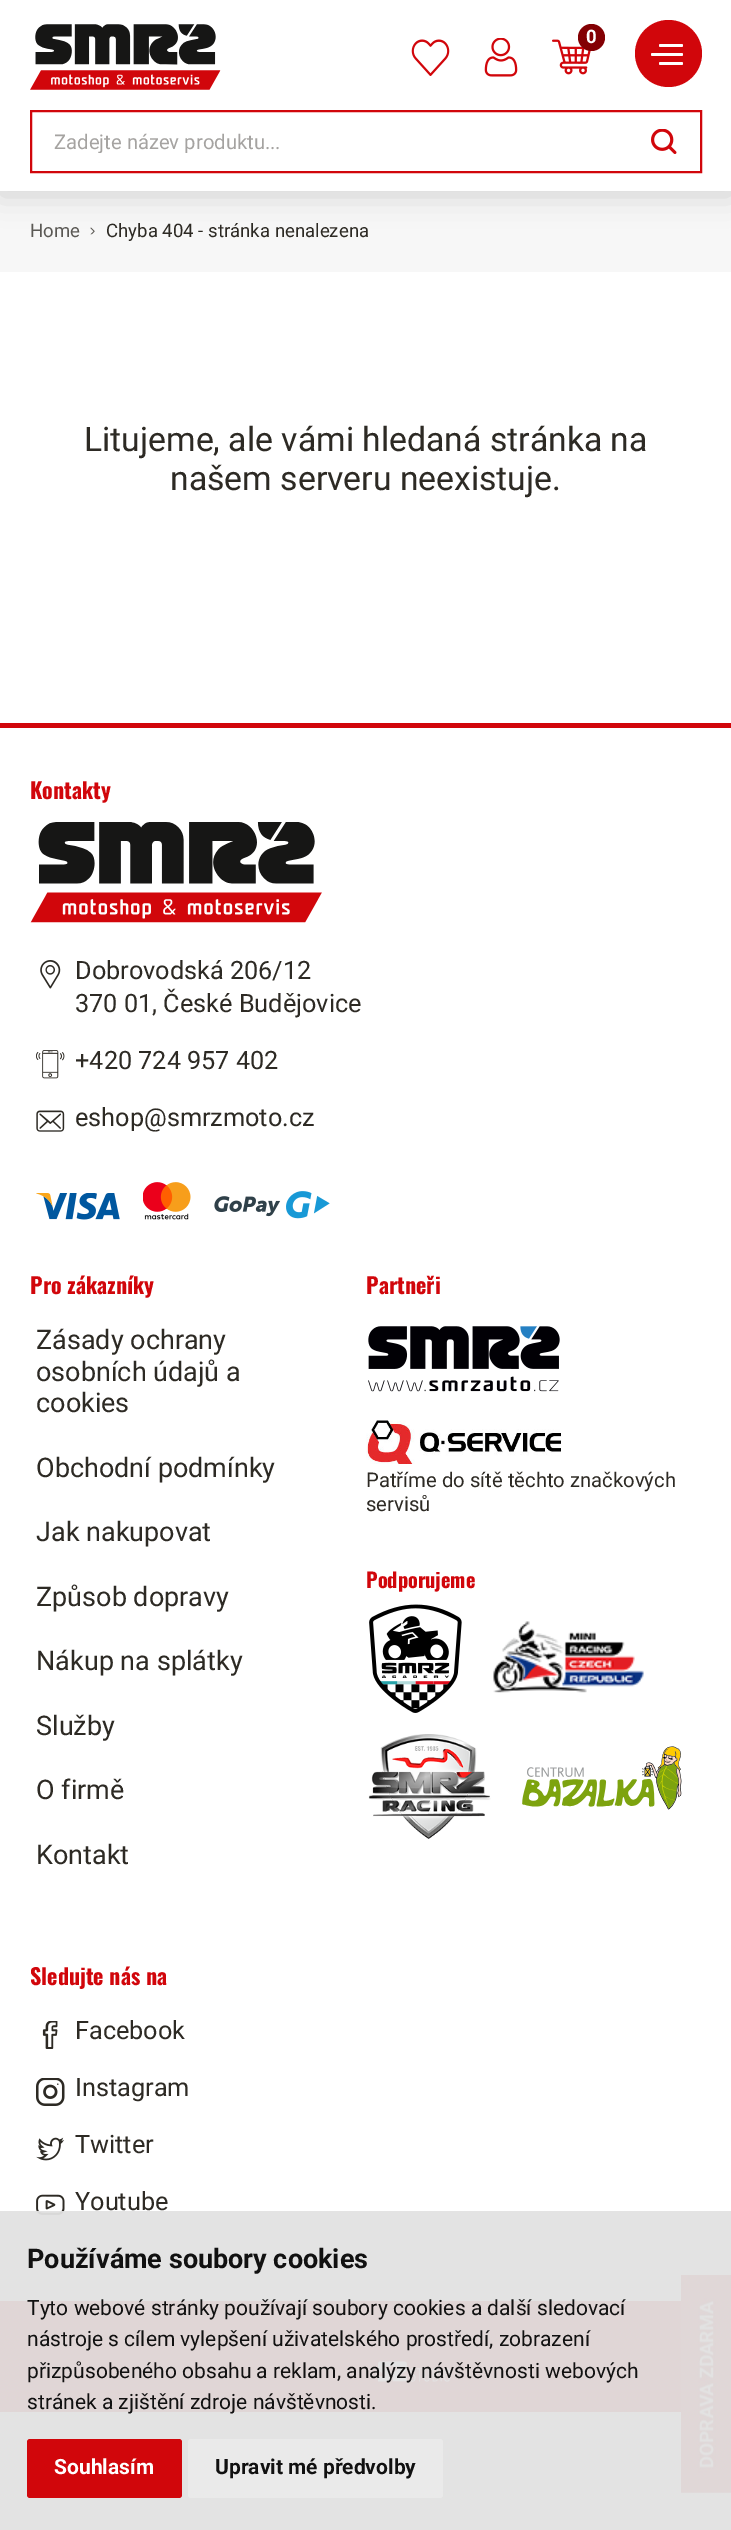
%!PS
<< /PageSize [731 2530] /PageUsesTransparency true >> setpagedevice
/fl/fill load def
/gs/gsave load def
/gr/grestore load def
/lw/setlinewidth load def
/co { dup -16 bitshift 255 div exch dup -8 bitshift 255 and 255 div exch 255 and 255 div setrgbcolor } def
/fn { [ exch dup neg 0 0 3 -1 roll 0 0 ] selectfont } def
/tx { co fn moveto show } def
/bx { co rectfill } def
/al { dup .setfillconstantalpha .setstrokeconstantalpha } def
/ci { newpath 0 360 arc closepath } def
/rr { 5 dict begin { /r /h /w /y /x } { exch def } forall
  x r add y moveto x w add y 2 copy h add r arct x w add y h add x 1 index r arct
  x y h add x y r arct x y 2 copy exch w add exch r arct closepath end } def
/sh { 12 dict begin { /a /b /q /h /w /y /x } { exch def } forall gsave /was 0 def
  9 -2 -9 { dup b mul 4 div /e exch def 1 sub .425 mul 2.718 exch exp 1 add a .99 .min exch div /now exch def
    1 1 now sub 1 was sub div sub al /was now def
    w h .min e 2 mul add 0 gt { x e sub y e sub w e 2 mul add h e 2 mul add
      q e add b .6 mul add w h .min 2 div e add .min 0 .max rr fill } if } for grestore end } def
/im { 5 dict begin { /h /w /y /x /name } { exch def } forall
  gsave x y translate w h scale
  w h 8 [w 0 0 h 0 0] name (r) file false 3 colorimage grestore end } def
0 .pushpdf14devicefilter
0 2530 translate 1 -1 scale
4 setmiterlimit
0 0 731 2530 16#FFFFFF bx
0 191 731 81 16#F7F7F7 bx
(media/6.raw) 90 227 5 8 im
16#000000 co
0 5 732 190 0 15 .16 sh
0 0 731 191 16#FFFFFF bx
(media/1.raw) 30 24 191 66 im
(media/2.raw) 552 39 39 36 im
16#830003 co
591.5 37.5 13.5 ci fl
16#D1060B co
668.5 53.5 33.5 ci fl
16#FFFFFF co
659 44 24 3 1.5 rr fl
651 53 32 3 1.5 rr fl
659 62 24 3 1.5 rr fl
(media/3.raw) 411 39 39 37 im
(media/4.raw) 484 38 34 39 im
16#D1060B co
2 lw
31 111 670 61 rectstroke
(media/5.raw) 651 129 26 25 im
0 723 731 5 16#D1060B bx
(media/7.raw) 30 822 292 101 im
(media/8.raw) 40 960 21 29 im
(media/9.raw) 36 1050 29 29 im
(media/10.raw) 36 1110 29 22 im
(media/11.raw) 36 1193 84 27 im
(media/12.raw) 143 1182 48 38 im
(media/13.raw) 214 1191 116 28 im
(media/14.raw) 368 1326 192 66 im
(media/15.raw) 366 1420 195 44 im
(media/16.raw) 369 1604 93 109 im
(media/17.raw) 493 1621 151 72 im
(media/18.raw) 368 1734 123 105 im
(media/19.raw) 522 1746 160 64 im
(media/20.raw) 42 2021 16 28 im
(media/21.raw) 36 2078 29 28 im
(media/22.raw) 36 2137 28 24 im
(media/23.raw) 36 2194 29 21 im
0 2301 681 111 16#D1060B bx
(media/24.raw) 378 2361 72 21 im
(media/25.raw) 681 2275 50 218 im
0.95 al
0 2211 731 319 16#E1E1E1 bx
1 al
16#D1060B co
27 2439 155 59 3 rr fl
16#EAEAEA co
188 2439 255 59 3 rr fl
(0) 586 43 /Roboto-Bold 18.6 16#FFFFFF tx
gs
54 129 542 24 rectclip
(Zadejte název produktu...) 54 149 /Roboto-Regular 20.25 16#A5A3A1 tx
gr
(Home) 30 237 /Roboto-Regular 18.6 16#5B5955 tx
(Chyba 404 - stránka nenalezena) 106 237 /Roboto-Regular 18.6 16#2D2A24 tx
(Litujeme, ale vámi hledaná stránka na) 84 451 /Roboto-Regular 33.75 16#2D2A24 tx
(našem serveru neexistuje.) 170 490 /Roboto-Regular 33.75 16#2D2A24 tx
(Kontakty) 30 799 /Oswald-Bold 22 16#D1060B tx
(Dobrovodská 206/12) 75 979 /Roboto-Regular 25.25 16#2D2A24 tx
(370 01, České Budějovice) 75 1012 /Roboto-Regular 25.25 16#2D2A24 tx
(+420 724 957 402) 75 1069 /Roboto-Regular 25.25 16#2D2A24 tx
(eshop@smrzmoto.cz) 75 1126 /Roboto-Regular 25.25 16#2D2A24 tx
(Pro zákazníky) 30 1294 /Oswald-Bold 22 16#D1060B tx
(Zásady ochrany) 36 1349 /Roboto-Regular 27 16#2D2A24 tx
(osobních údajů a) 36 1381 /Roboto-Regular 27 16#2D2A24 tx
(cookies) 36 1412 /Roboto-Regular 27 16#2D2A24 tx
(Obchodní podmínky) 36 1477 /Roboto-Regular 27 16#2D2A24 tx
(Jak nakupovat) 36 1541 /Roboto-Regular 27 16#2D2A24 tx
(Způsob dopravy) 36 1606 /Roboto-Regular 27 16#2D2A24 tx
(Nákup na splátky) 36 1670 /Roboto-Regular 27 16#2D2A24 tx
(Služby) 36 1735 /Roboto-Regular 27 16#2D2A24 tx
(O firmě) 36 1799 /Roboto-Regular 27 16#2D2A24 tx
(Kontakt) 36 1864 /Roboto-Regular 27 16#2D2A24 tx
(Partneři) 366 1294 /Oswald-Bold 22 16#D1060B tx
(Patříme do sítě těchto značkových) 366 1487 /Roboto-Regular 20.25 16#2D2A24 tx
(servisů) 366 1511 /Roboto-Regular 20.25 16#2D2A24 tx
(Podporujeme) 366 1588 /Oswald-Bold 20.25 16#D1060B tx
(Sledujte nás na) 30 1985 /Oswald-Bold 22 16#D1060B tx
(Facebook) 75 2039 /Roboto-Regular 25.25 16#2D2A24 tx
(Instagram) 75 2096 /Roboto-Regular 25.25 16#2D2A24 tx
(Twitter) 75 2153 /Roboto-Regular 25.25 16#2D2A24 tx
(Youtube) 75 2210 /Roboto-Regular 25.25 16#2D2A24 tx
(Používáme soubory cookies) 27 2268 /Roboto-Bold 27 16#111111 tx
(Tyto webové stránky používají soubory cookies a další sledovací) 27 2315 /Roboto-Regular 21 16#111111 tx
(nástroje s cílem vylepšení uživatelského prostředí, zobrazení) 27 2346 /Roboto-Regular 21 16#111111 tx
(přizpůsobeného obsahu a reklam, analýzy návštěvnosti webových) 27 2378 /Roboto-Regular 21 16#111111 tx
(stránek a zjištění zdroje návštěvnosti.) 27 2409 /Roboto-Regular 21 16#111111 tx
(Souhlasím) 54 2474 /Roboto-Bold 21 16#FFFFFF tx
(Upravit mé předvolby) 215 2474 /Roboto-Bold 21 16#111111 tx
.poppdf14devicefilter showpage
